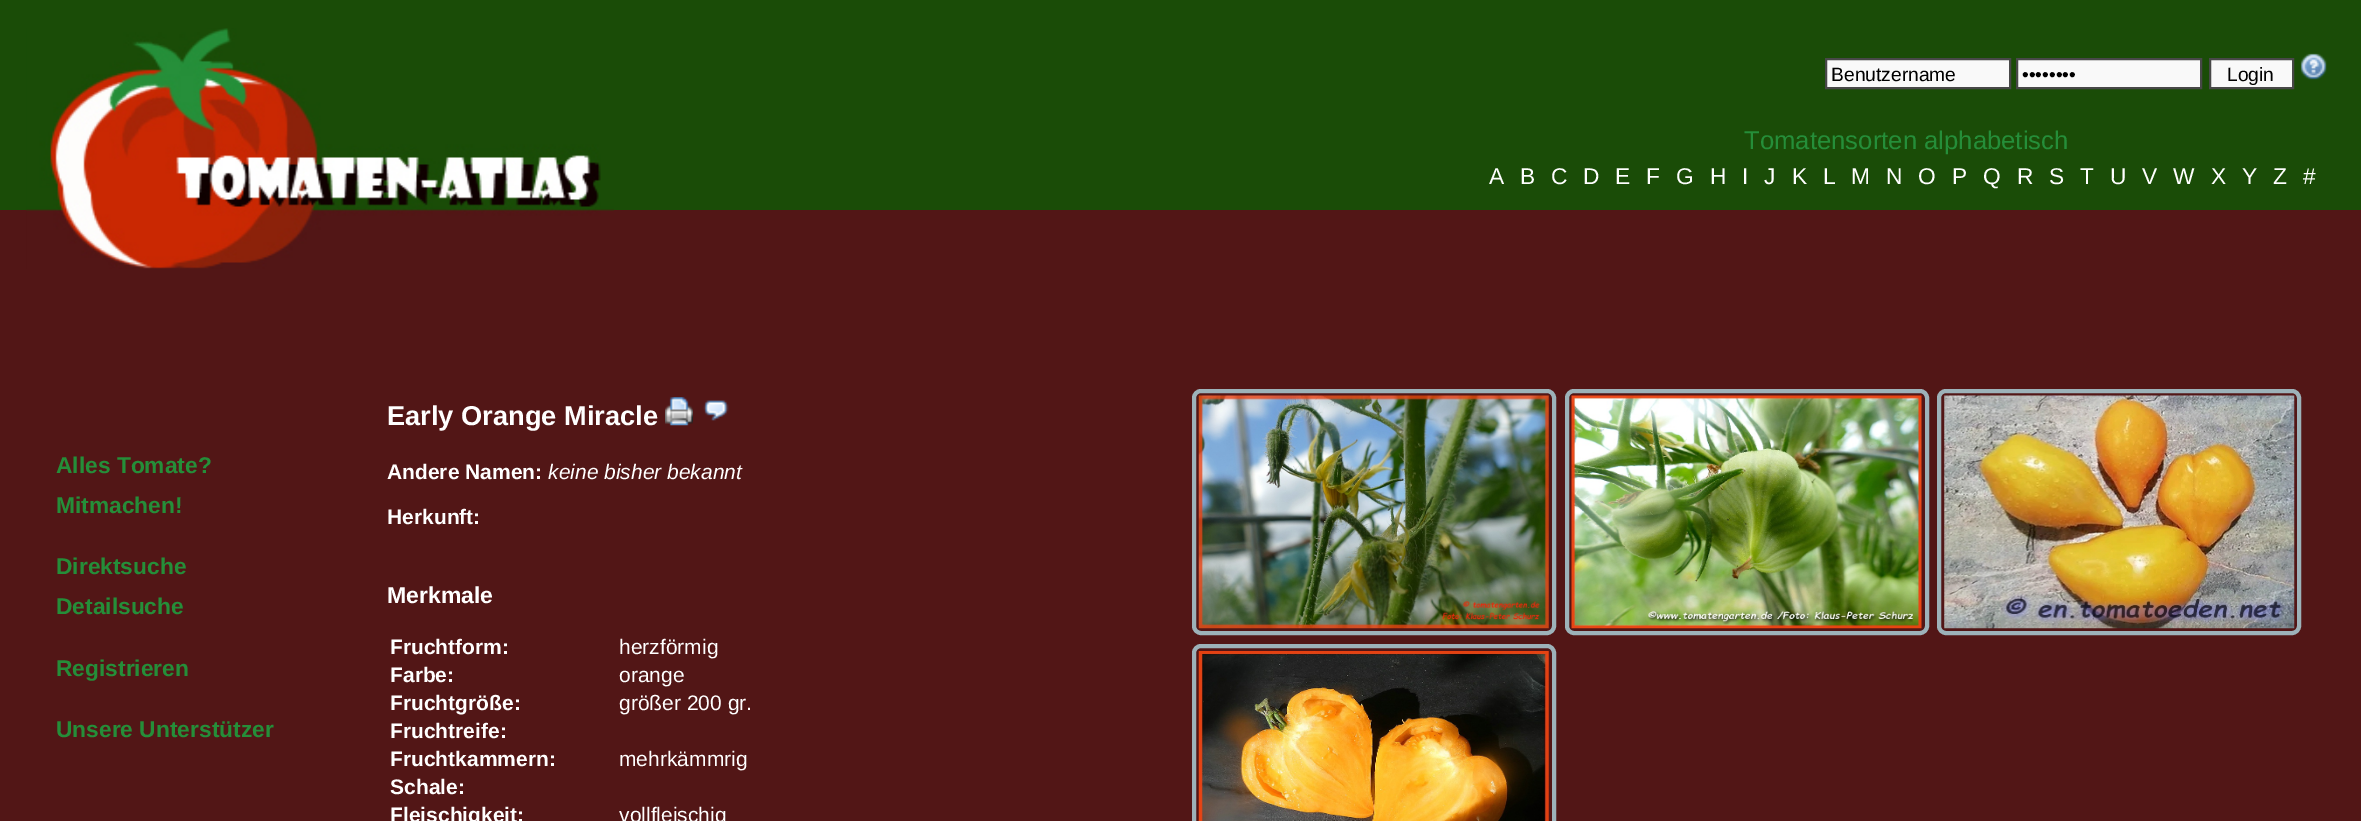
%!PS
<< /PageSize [2361 821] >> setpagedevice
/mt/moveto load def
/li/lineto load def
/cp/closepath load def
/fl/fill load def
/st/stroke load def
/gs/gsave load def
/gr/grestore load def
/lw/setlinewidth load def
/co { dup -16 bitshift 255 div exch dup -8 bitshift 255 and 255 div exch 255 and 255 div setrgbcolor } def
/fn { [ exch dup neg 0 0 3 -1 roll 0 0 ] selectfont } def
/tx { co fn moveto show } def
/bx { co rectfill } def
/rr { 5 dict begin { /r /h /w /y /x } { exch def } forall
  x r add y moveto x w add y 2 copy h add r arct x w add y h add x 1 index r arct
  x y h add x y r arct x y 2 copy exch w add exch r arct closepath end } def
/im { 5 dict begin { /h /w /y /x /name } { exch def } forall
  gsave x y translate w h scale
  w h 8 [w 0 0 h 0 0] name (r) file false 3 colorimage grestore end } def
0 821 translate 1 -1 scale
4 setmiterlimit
0 0 2361 821 16#521616 bx
0 0 2361 210 16#1A4C07 bx
(media/1.raw) 26 28 588 241 im
16#F9F9F9 co
1826 59 mt 2010 59 li 2010 88 li 1826 88 li cp gs fl gr
16#484848 co
2 lw
st
16#F9F9F9 co
2017 59 mt 2201 59 li 2201 88 li 2017 88 li cp gs fl gr
16#484848 co
st
16#F9F9F9 co
2210 59 mt 2293 59 li 2293 88 li 2210 88 li cp gs fl gr
16#484848 co
st
(media/2.raw) 2300 53 27 27 im
(media/3.raw) 665 397 28 29 im
(media/4.raw) 703 400 26 21 im
16#9DB2B9 co
4 lw
1194 391 360 242 7 rr st
(media/5.raw) 1198 395 351 234 im
1567 391 360 242 7 rr st
(media/6.raw) 1571 395 351 234 im
1939 391 360 242 7 rr st
(media/7.raw) 1944 395 351 234 im
1194 646 360 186 7 rr st
(media/8.raw) 1198 651 351 170 im
(Benutzername) 1831 81 /LiberationSans-Regular 19.25 16#000000 tx
(••••••••) 2022 81 /LiberationSans-Regular 19.25 16#000000 tx
(Login) 2227 81 /LiberationSans-Regular 19.25 16#000000 tx
(Tomatensorten alphabetisch) 1744 149 /LiberationSans-Regular 25.7 16#258E39 tx
(A) 1489 184 /LiberationSans-Regular 22.75 16#FFFFFF tx
(B) 1520 184 /LiberationSans-Regular 22.75 16#FFFFFF tx
(C) 1551 184 /LiberationSans-Regular 22.75 16#FFFFFF tx
(D) 1583 184 /LiberationSans-Regular 22.75 16#FFFFFF tx
(E) 1615 184 /LiberationSans-Regular 22.75 16#FFFFFF tx
(F) 1646 184 /LiberationSans-Regular 22.75 16#FFFFFF tx
(G) 1676 184 /LiberationSans-Regular 22.75 16#FFFFFF tx
(H) 1710 184 /LiberationSans-Regular 22.75 16#FFFFFF tx
(I) 1742 184 /LiberationSans-Regular 22.75 16#FFFFFF tx
(J) 1764 184 /LiberationSans-Regular 22.75 16#FFFFFF tx
(K) 1792 184 /LiberationSans-Regular 22.75 16#FFFFFF tx
(L) 1823 184 /LiberationSans-Regular 22.75 16#FFFFFF tx
(M) 1851 184 /LiberationSans-Regular 22.75 16#FFFFFF tx
(N) 1886 184 /LiberationSans-Regular 22.75 16#FFFFFF tx
(O) 1918 184 /LiberationSans-Regular 22.75 16#FFFFFF tx
(P) 1952 184 /LiberationSans-Regular 22.75 16#FFFFFF tx
(Q) 1983 184 /LiberationSans-Regular 22.75 16#FFFFFF tx
(R) 2017 184 /LiberationSans-Regular 22.75 16#FFFFFF tx
(S) 2049 184 /LiberationSans-Regular 22.75 16#FFFFFF tx
(T) 2080 184 /LiberationSans-Regular 22.75 16#FFFFFF tx
(U) 2110 184 /LiberationSans-Regular 22.75 16#FFFFFF tx
(V) 2142 184 /LiberationSans-Regular 22.75 16#FFFFFF tx
(W) 2173 184 /LiberationSans-Regular 22.75 16#FFFFFF tx
(X) 2211 184 /LiberationSans-Regular 22.75 16#FFFFFF tx
(Y) 2242 184 /LiberationSans-Regular 22.75 16#FFFFFF tx
(Z) 2273 184 /LiberationSans-Regular 22.75 16#FFFFFF tx
(#) 2303 184 /LiberationSans-Regular 22.75 16#FFFFFF tx
(Alles Tomate?) 56 473 /LiberationSans-Bold 22.75 16#258E39 tx
(Mitmachen!) 56 513 /LiberationSans-Bold 22.75 16#258E39 tx
(Direktsuche) 56 574 /LiberationSans-Bold 22.75 16#258E39 tx
(Detailsuche) 56 614 /LiberationSans-Bold 22.75 16#258E39 tx
(Registrieren) 56 676 /LiberationSans-Bold 22.75 16#258E39 tx
(Unsere Unterstützer) 56 737 /LiberationSans-Bold 22.75 16#258E39 tx
(Early Orange Miracle) 387 425 /LiberationSans-Bold 27.25 16#FFFFFF tx
(Andere Namen:) 387 479 /LiberationSans-Bold 21 16#FFFFFF tx
(keine bisher bekannt) 548 479 /LiberationSans-Italic 21 16#FFFFFF tx
(Herkunft:) 387 524 /LiberationSans-Bold 21 16#FFFFFF tx
(Merkmale) 387 603 /LiberationSans-Bold 23 16#FFFFFF tx
(Fruchtform:) 390 654 /LiberationSans-Bold 21 16#FFFFFF tx
(herzförmig) 619 654 /LiberationSans-Regular 21 16#FFFFFF tx
(Farbe:) 390 682 /LiberationSans-Bold 21 16#FFFFFF tx
(orange) 619 682 /LiberationSans-Regular 21 16#FFFFFF tx
(Fruchtgröße:) 390 710 /LiberationSans-Bold 21 16#FFFFFF tx
(größer 200 gr.) 619 710 /LiberationSans-Regular 21 16#FFFFFF tx
(Fruchtreife:) 390 738 /LiberationSans-Bold 21 16#FFFFFF tx
(Fruchtkammern:) 390 766 /LiberationSans-Bold 21 16#FFFFFF tx
(mehrkämmrig) 619 766 /LiberationSans-Regular 21 16#FFFFFF tx
(Schale:) 390 794 /LiberationSans-Bold 21 16#FFFFFF tx
(Fleischigkeit:) 390 822 /LiberationSans-Bold 21 16#FFFFFF tx
(vollfleischig) 619 822 /LiberationSans-Regular 21 16#FFFFFF tx
showpage
